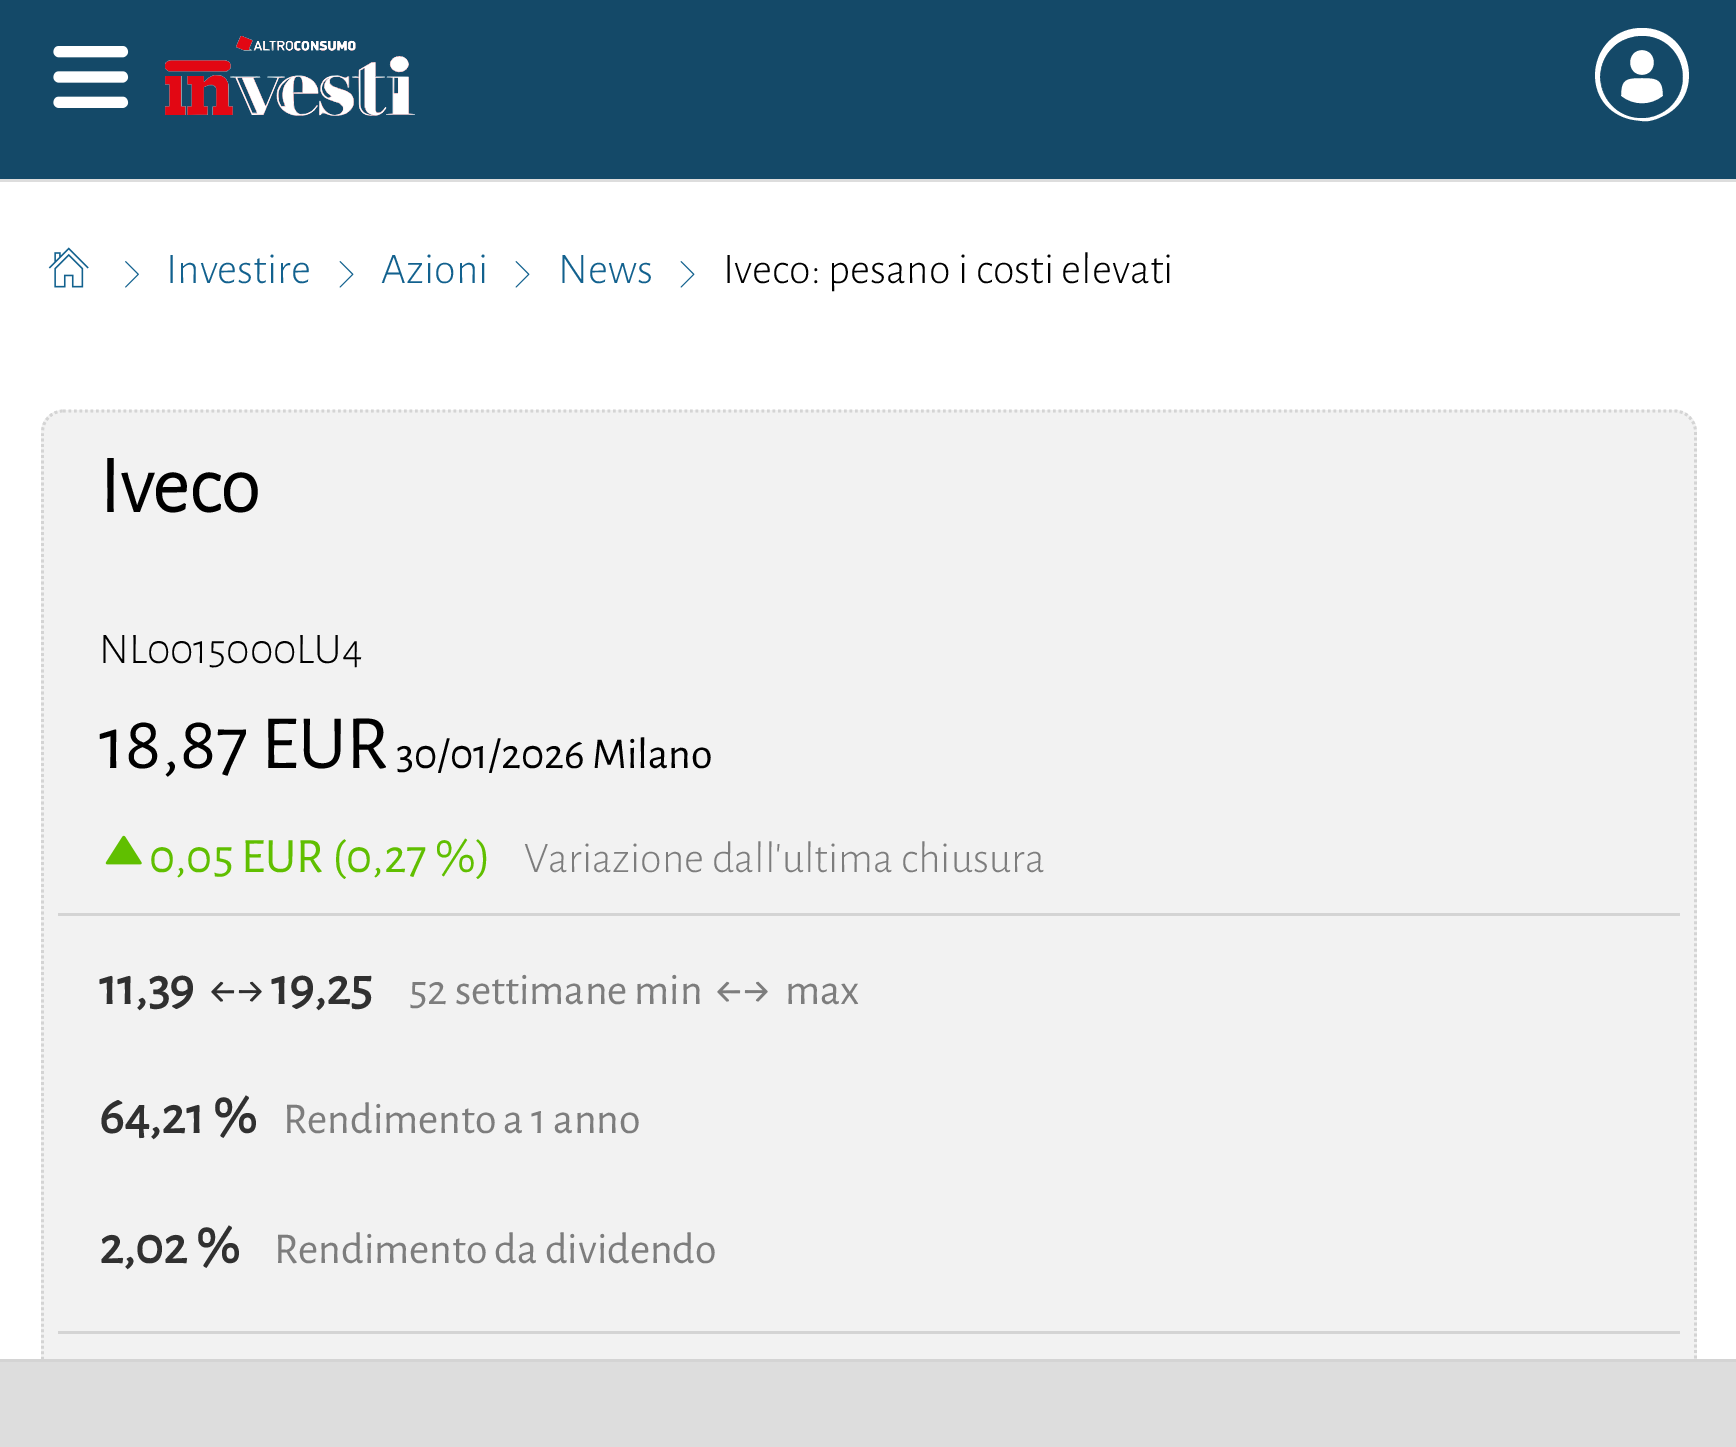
%!PS
<< /PageSize [1736 1447] >> setpagedevice
/mt/moveto load def
/li/lineto load def
/ct/curveto load def
/cp/closepath load def
/fl/fill load def
/st/stroke load def
/lw/setlinewidth load def
/co { dup -16 bitshift 255 div exch dup -8 bitshift 255 and 255 div exch 255 and 255 div setrgbcolor } def
/fn { [ exch dup neg 0 0 3 -1 roll 0 0 ] selectfont } def
/tx { co fn moveto show } def
/bx { co rectfill } def
/ci { newpath 0 360 arc closepath } def
/rr { 5 dict begin { /r /h /w /y /x } { exch def } forall
  x r add y moveto x w add y 2 copy h add r arct x w add y h add x 1 index r arct
  x y h add x y r arct x y 2 copy exch w add exch r arct closepath end } def
/im { 5 dict begin { /h /w /y /x /name } { exch def } forall
  gsave x y translate w h scale
  w h 8 [w 0 0 h 0 0] name (r) file false 3 colorimage grestore end } def
0 1447 translate 1 -1 scale
4 setmiterlimit
0 0 1736 1447 16#FFFFFF bx
0 0 1736 179 16#144968 bx
0 179 1736 3 16#DDDDDD bx
(media/1.raw) 53 46 76 62 im
(media/2.raw) 165 36 250 80 im
16#FFFFFF co
1642 28 mt 1591 28 1577 98 1623 117 ct 1631 120 1634 120 1642 121 ct 1647 122 1655 120 1661 117 ct 1707 98 1693 28 1642 28 ct cp 1642 36 mt 1619 36 1600 54 1600 77 ct 1600 100 1619 118 1642 118 ct 1665 118 1683 100 1683 77 ct 1683 54 1665 36 1642 36 ct cp eofill
1642 77 41 ci fl
16#144968 co
1642 36 mt 1633 36 1624 39 1617 44 ct 1586 68 1602 118 1642 118 ct 1651 118 1659 115 1666 110 ct 1698 86 1681 36 1642 36 ct cp 1642 50 mt 1658 50 1658 75 1642 75 ct 1626 75 1626 50 1642 50 ct cp 1663 96 mt 1651 106 1633 106 1621 96 ct 1621 79 1626 78 1642 78 ct 1657 78 1663 79 1663 96 ct cp fl
(media/3.raw) 48 247 41 41 im
(media/4.raw) 125 261 14 27 im
(media/5.raw) 339 261 15 27 im
(media/5.raw) 515 261 15 27 im
(media/5.raw) 680 261 15 27 im
16#F2F2F2 co
41 410 1656 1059 22 rr fl
16#D4D4D4 co
2.8 lw
[2.75 2.75] 0 setdash
63 411 mt 1675 411 li 1686 411 1695.5 420.5 1695.5 432 ct 1695.5 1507 li 1695.5 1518.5 1686 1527.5 1675 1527.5 ct 63 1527.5 li 52 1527.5 42.5 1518.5 42.5 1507 ct 42.5 432 li 42.5 420.5 52 411 63 411 ct cp st
58 913 1622 3 16#D4D4D4 bx
(media/6.raw) 105 835 37 30 im
58 1331 1622 3 16#D4D4D4 bx
(media/7.raw) 211 981 51 21 im
(media/8.raw) 717 981 51 21 im
0 1362 1736 85 16#DDDDDD bx
0 1359 1736 3 16#D4D4D4 bx
(Investire) 166 283 /AlegreyaSans-Light 44 16#12618E tx
(Azioni) 381 283 /AlegreyaSans-Light 44 16#12618E tx
(News) 558 283 /AlegreyaSans-Light 44 16#12618E tx
(Iveco: pesano i costi elevati) 723 283 /AlegreyaSans-Light 44 16#000000 tx
(Iveco) 99 512 /AlegreyaSans-Bold 81 16#000000 tx
(NL0015000LU4) 99 663 /AlegreyaSans-Light 44 16#000000 tx
(18,87 EUR) 99 768 /AlegreyaSans-Regular 77 16#000000 tx
(30/01/2026 Milano) 396 768 /AlegreyaSans-Regular 44 16#000000 tx
(0,05 EUR \(0,27 %\)) 149 872 /AlegreyaSans-Regular 49.5 16#60BF00 tx
(Variazione dall'ultima chiusura) 524 872 /AlegreyaSans-Light 44 16#7D7D7D tx
(11,39) 99 1004 /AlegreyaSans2-Bold 53 16#303030 tx
(19,25) 271 1004 /AlegreyaSans2-Bold 53 16#303030 tx
(52 settimane min) 409 1004 /AlegreyaSans-Regular 44 16#7D7D7D tx
(max) 785 1004 /AlegreyaSans-Regular 44 16#7D7D7D tx
(64,21 %) 99 1133 /AlegreyaSans2-Bold 53 16#303030 tx
(Rendimento a 1 anno) 283 1133 /AlegreyaSans-Regular 44 16#7D7D7D tx
(2,02 %) 99 1263 /AlegreyaSans2-Bold 53 16#303030 tx
(Rendimento da dividendo) 274 1263 /AlegreyaSans-Regular 44 16#7D7D7D tx
showpage
